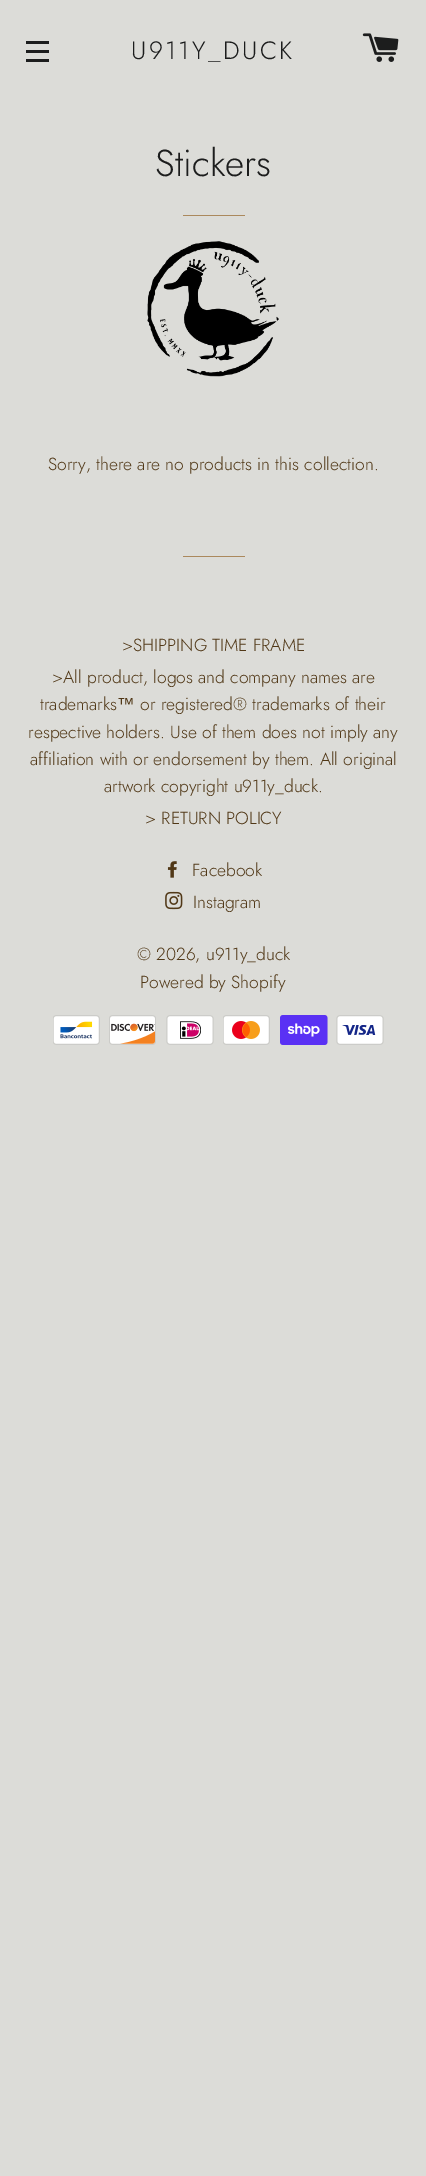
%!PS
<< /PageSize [426 2176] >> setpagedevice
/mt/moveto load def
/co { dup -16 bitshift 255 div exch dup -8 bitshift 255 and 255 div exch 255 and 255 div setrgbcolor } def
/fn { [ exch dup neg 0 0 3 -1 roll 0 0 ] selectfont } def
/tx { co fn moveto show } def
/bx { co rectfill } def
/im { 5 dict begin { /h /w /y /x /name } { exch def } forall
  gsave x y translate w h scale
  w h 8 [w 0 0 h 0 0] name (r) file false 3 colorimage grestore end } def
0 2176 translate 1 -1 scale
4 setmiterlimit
0 0 426 2176 16#DCDCD8 bx
26 41 23 3 16#1C1D1D bx
26 50 23 3 16#1C1D1D bx
26 59 23 3 16#1C1D1D bx
(media/1.raw) 362 33 37 29 im
183 215 62 1 16#AB895D bx
(media/2.raw) 147 241 132 136 im
183 556 62 1 16#AB895D bx
(media/3.raw) 167 861 10 17 im
(media/4.raw) 165 891 18 19 im
(media/5.raw) 53 1015 47 30 im
(media/6.raw) 109 1015 47 30 im
(media/7.raw) 166 1015 48 30 im
(media/8.raw) 223 1015 47 30 im
(media/9.raw) 280 1015 48 30 im
(media/10.raw) 336 1015 48 30 im
/Jost-Light 25 fn
16#1C1D1D co
131 59 mt 2.5 0 (U911Y_DUCK) ashow
(Stickers) 155 176 /Jost-Light 37.5 16#1C1D1D tx
(Sorry, there are no products in this collection.) 48 470 /Jost-Light 17.5 16#513817 tx
(>SHIPPING TIME FRAME) 122 651 /Jost-Light 17.5 16#513817 tx
(>All product, logos and company names are) 52 683 /Jost-Light 17.5 16#513817 tx
(trademarks) 40 710 /Jost-Light 17.5 16#513817 tx
(™) 117 710 /LiberationSans-Regular 17.5 16#513817 tx
(or registered® trademarks of their) 140 710 /Jost-Light 17.5 16#513817 tx
(respective holders. Use of them does not imply any) 28 738 /Jost-Light 17.5 16#513817 tx
(affiliation with or endorsement by them. All original) 30 765 /Jost-Light 17.5 16#513817 tx
(artwork copyright u911y_duck.) 104 792 /Jost-Light 17.5 16#513817 tx
(> RETURN POLICY) 145 824 /Jost-Light 17.5 16#513817 tx
(Facebook) 192 876 /Jost-Light 17.5 16#513817 tx
(Instagram) 193 908 /Jost-Light 17.5 16#513817 tx
(© 2026, u911y_duck) 137 960 /Jost-Light 17.5 16#513817 tx
(Powered by Shopify) 140 988 /Jost-Light 17.5 16#513817 tx
showpage
